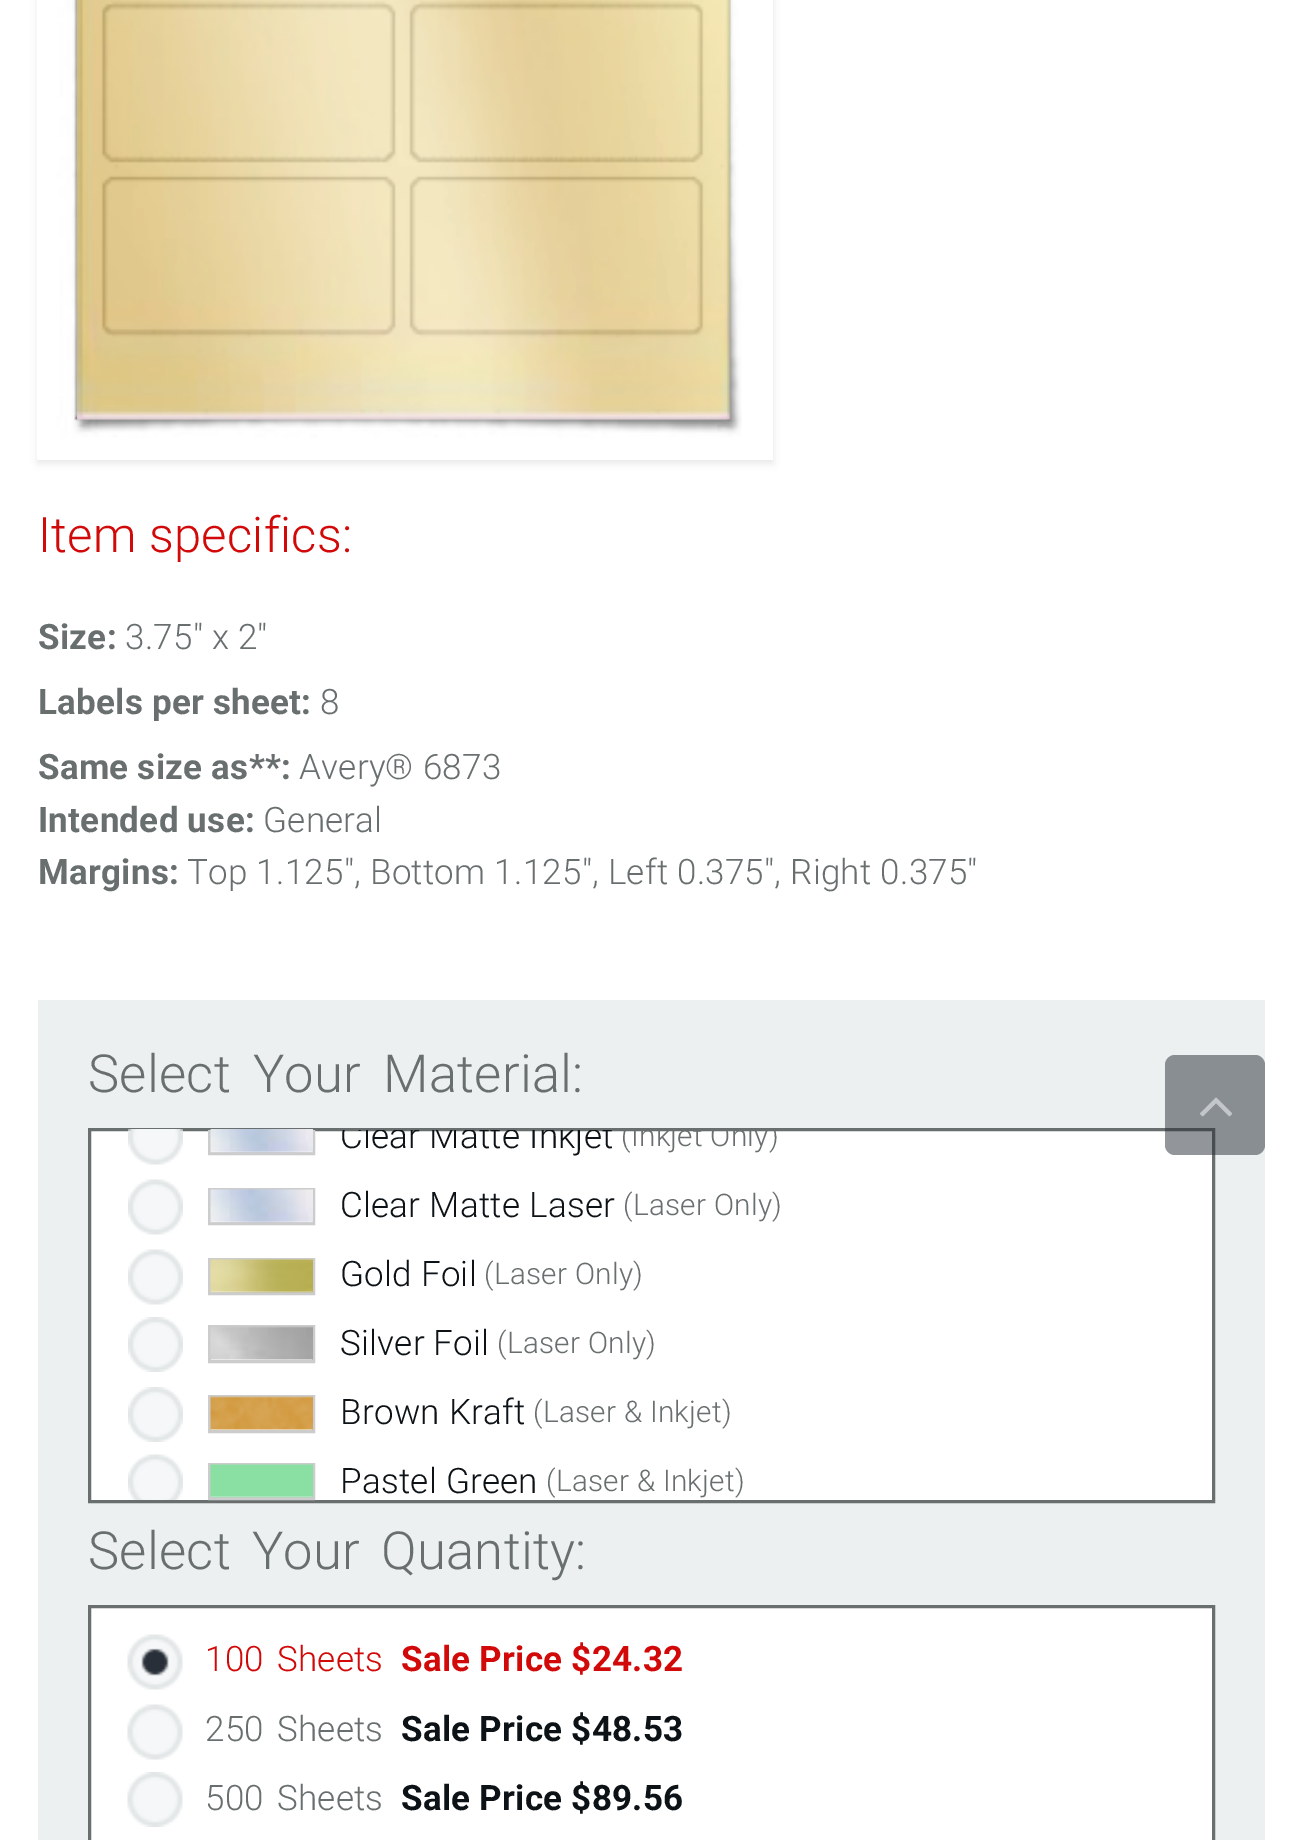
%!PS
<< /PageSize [1302 1840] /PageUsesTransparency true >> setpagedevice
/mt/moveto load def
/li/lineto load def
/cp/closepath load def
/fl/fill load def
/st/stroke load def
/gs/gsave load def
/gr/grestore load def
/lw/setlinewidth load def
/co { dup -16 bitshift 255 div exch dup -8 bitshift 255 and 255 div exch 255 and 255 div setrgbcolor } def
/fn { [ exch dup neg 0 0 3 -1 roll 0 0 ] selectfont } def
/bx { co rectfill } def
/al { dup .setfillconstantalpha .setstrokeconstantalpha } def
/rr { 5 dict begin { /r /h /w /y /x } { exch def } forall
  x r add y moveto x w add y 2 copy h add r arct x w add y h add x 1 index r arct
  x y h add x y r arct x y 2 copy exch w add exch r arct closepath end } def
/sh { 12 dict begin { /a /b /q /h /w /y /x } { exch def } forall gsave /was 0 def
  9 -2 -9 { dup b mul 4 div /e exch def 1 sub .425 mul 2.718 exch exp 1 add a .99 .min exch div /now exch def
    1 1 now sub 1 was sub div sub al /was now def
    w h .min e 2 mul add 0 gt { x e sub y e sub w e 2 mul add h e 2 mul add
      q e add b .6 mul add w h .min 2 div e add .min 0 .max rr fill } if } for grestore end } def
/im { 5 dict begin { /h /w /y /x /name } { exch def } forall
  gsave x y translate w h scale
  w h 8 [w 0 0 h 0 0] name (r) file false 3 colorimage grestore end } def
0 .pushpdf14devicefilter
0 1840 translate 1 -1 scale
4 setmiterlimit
0 0 1302 1840 16#FFFFFF bx
gs
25 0 mt 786 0 li 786 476 li 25 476 li cp 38 -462 mt 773 -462 li 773 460 li 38 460 li cp eoclip newpath
16#000000 co
38 -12 735 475 0 4 .1 sh
gr
(media/1.raw) 37 0 705 459 im
(media/2.raw) 77 0 654 420 im
38 1000 1227 840 16#ECF0F1 bx
16#FFFFFF co
89.5 1129.5 mt 1213.5 1129.5 li 1213.5 1501.5 li 89.5 1501.5 li cp gs fl gr
16#696E6E co
3 lw
st
(media/3.raw) 128 1129 55 36 im
gs
90 1130 1123 370 rectclip
16#CCCCCC co
209.5 1119.5 104 34 rectstroke
gr
(media/4.raw) 210 1129 103 24 im
(media/5.raw) 128 1179 55 56 im
16#CCCCCC co
209.5 1189.5 104 34 rectstroke
(media/6.raw) 210 1189 103 34 im
(media/5.raw) 128 1249 55 56 im
209.5 1259.5 104 34 rectstroke
(media/7.raw) 210 1259 103 34 im
(media/8.raw) 128 1317 55 55 im
209.5 1326.5 104 35 rectstroke
(media/9.raw) 210 1326 103 34 im
(media/8.raw) 128 1387 55 55 im
209.5 1396.5 104 35 rectstroke
(media/10.raw) 210 1396 103 34 im
(media/11.raw) 128 1454 55 46 im
209.5 1464.5 104 34 rectstroke
(media/12.raw) 210 1464 103 34 im
16#FFFFFF co
89.5 1606.5 mt 1213.5 1606.5 li 1213.5 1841.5 li 89.5 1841.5 li cp gs fl gr
16#696E6E co
st
(media/13.raw) 127 1634 56 56 im
(media/14.raw) 127 1704 56 56 im
(media/15.raw) 127 1772 56 55 im
0.5 al
16#262C34 co
1165 1055 100 100 10 rr fl
1 al
(media/16.raw) 1200 1097 33 20 im
/Roboto-Light 49 fn
16#D10909 co
38 552 mt .25 0 (Item specifics:) ashow
/Roboto-Bold 35 fn
16#696E6E co
38 649 mt .25 0 (Size:) ashow
/Roboto-Light 35 fn
125 649 mt .25 0 (3.75" x 2") ashow
/Roboto-Bold 35 fn
38 714 mt .25 0 (Labels per sheet:) ashow
/Roboto-Light 35 fn
320 714 mt .25 0 (8) ashow
/Roboto-Bold 35 fn
38 779 mt .25 0 (Same size as**:) ashow
/Roboto-Light 35 fn
299 779 mt .25 0 (Avery® 6873) ashow
/Roboto-Bold 35 fn
38 832 mt .25 0 (Intended use:) ashow
/Roboto-Light 35 fn
263 832 mt .25 0 (General) ashow
/Roboto-Bold 35 fn
38 884 mt .25 0 (Margins:) ashow
/Roboto-Light 35 fn
187 884 mt .25 0 (Top 1.125", Bottom 1.125", Left 0.375", Right 0.375") ashow
/Roboto-Light 52.5 fn
88 1092 mt 9 0 32 .25 0 (Select Your Material:) awidthshow
gs
90 1130 1123 370 rectclip
/Roboto-Light 35 fn
16#0D1216 co
340 1148 mt .25 0 (Clear Matte Inkjet) ashow
/Roboto-Light 29.75 fn
16#696E6E co
621 1146 mt .25 0 (\(Inkjet Only\)) ashow
gr
/Roboto-Light 35 fn
16#0D1216 co
340 1217 mt .25 0 (Clear Matte Laser) ashow
/Roboto-Light 29.75 fn
16#696E6E co
623 1215 mt .25 0 (\(Laser Only\)) ashow
/Roboto-Light 35 fn
16#0D1216 co
340 1286 mt .25 0 (Gold Foil) ashow
/Roboto-Light 29.75 fn
16#696E6E co
484 1284 mt .25 0 (\(Laser Only\)) ashow
/Roboto-Light 35 fn
16#0D1216 co
340 1355 mt .25 0 (Silver Foil) ashow
/Roboto-Light 29.75 fn
16#696E6E co
497 1353 mt .25 0 (\(Laser Only\)) ashow
/Roboto-Light 35 fn
16#0D1216 co
340 1424 mt .25 0 (Brown Kraft) ashow
/Roboto-Light 29.75 fn
16#696E6E co
533 1422 mt .25 0 (\(Laser & Inkjet\)) ashow
/Roboto-Light 35 fn
16#0D1216 co
340 1493 mt .25 0 (Pastel Green) ashow
/Roboto-Light 29.75 fn
16#696E6E co
546 1491 mt .25 0 (\(Laser & Inkjet\)) ashow
/Roboto-Light 52.5 fn
88 1569 mt 8 0 32 .25 0 (Select Your Quantity:) awidthshow
/Roboto-Light 35 fn
16#D10909 co
205 1671 mt 4 0 32 .25 0 (100 Sheets) awidthshow
/Roboto-Bold 35 fn
401 1671 mt .25 0 (Sale Price $24.32) ashow
/Roboto-Light 35 fn
16#696E6E co
205 1741 mt 4 0 32 .25 0 (250 Sheets) awidthshow
/Roboto-Bold 35 fn
16#0D1216 co
401 1741 mt .25 0 (Sale Price $48.53) ashow
/Roboto-Light 35 fn
16#696E6E co
205 1810 mt 4 0 32 .25 0 (500 Sheets) awidthshow
/Roboto-Bold 35 fn
16#0D1216 co
401 1810 mt .25 0 (Sale Price $89.56) ashow
.poppdf14devicefilter showpage
